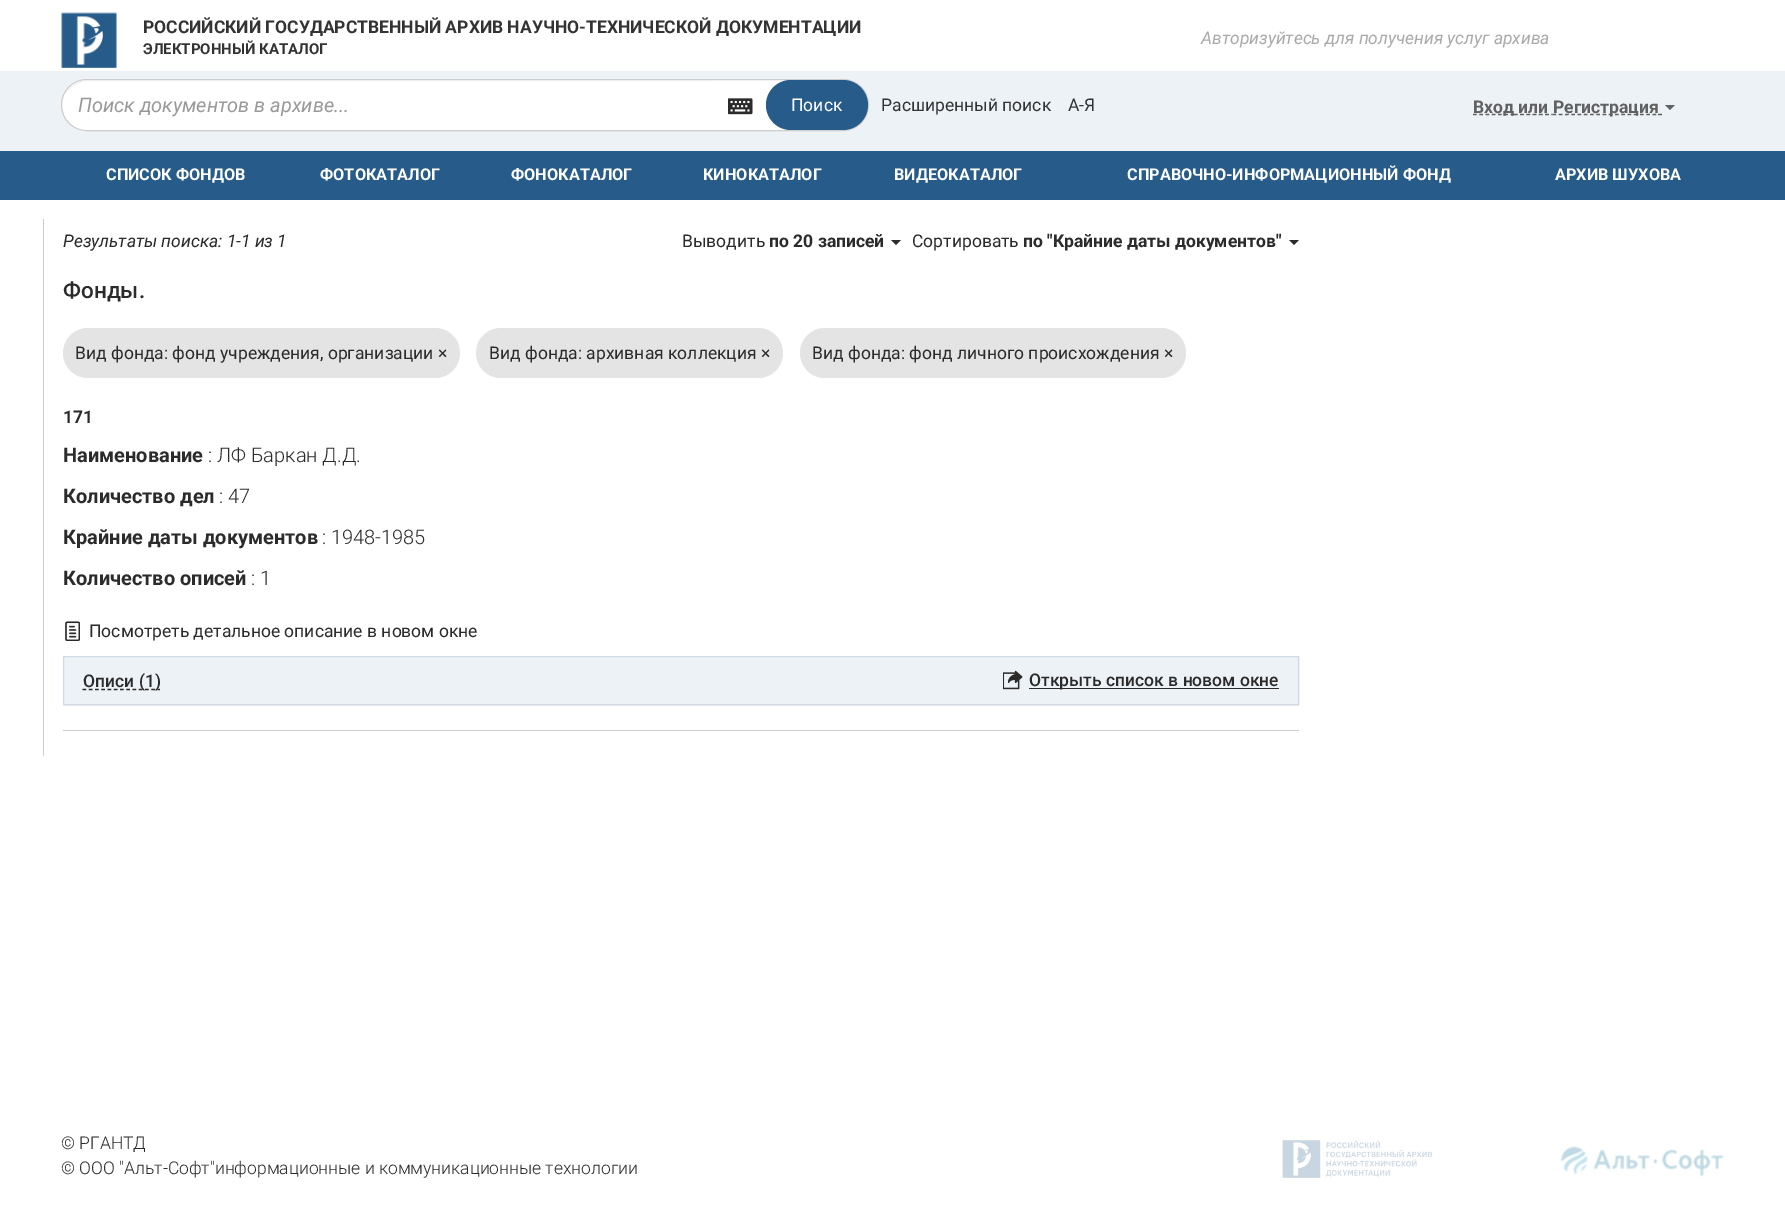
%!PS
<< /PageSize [1785 1208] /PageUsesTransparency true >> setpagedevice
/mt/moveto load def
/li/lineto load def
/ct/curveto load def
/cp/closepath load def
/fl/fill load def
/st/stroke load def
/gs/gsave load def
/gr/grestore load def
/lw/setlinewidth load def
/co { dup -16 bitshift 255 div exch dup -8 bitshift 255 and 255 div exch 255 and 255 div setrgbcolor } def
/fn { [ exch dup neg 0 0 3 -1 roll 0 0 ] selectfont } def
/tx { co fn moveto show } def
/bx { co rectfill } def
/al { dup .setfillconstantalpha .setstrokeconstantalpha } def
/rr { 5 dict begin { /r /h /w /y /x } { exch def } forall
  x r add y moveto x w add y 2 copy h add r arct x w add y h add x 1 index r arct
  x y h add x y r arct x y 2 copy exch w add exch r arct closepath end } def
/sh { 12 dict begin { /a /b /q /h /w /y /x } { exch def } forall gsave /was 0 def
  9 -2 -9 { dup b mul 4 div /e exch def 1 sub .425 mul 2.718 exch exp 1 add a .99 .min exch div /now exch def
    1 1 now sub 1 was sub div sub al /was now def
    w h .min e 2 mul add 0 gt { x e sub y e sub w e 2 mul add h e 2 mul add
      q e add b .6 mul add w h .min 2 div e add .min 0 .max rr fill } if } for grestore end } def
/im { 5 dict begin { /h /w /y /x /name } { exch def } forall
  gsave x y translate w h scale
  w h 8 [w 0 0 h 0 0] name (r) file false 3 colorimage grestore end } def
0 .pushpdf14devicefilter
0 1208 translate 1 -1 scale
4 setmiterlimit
0 0 1785 1208 16#FFFFFF bx
0 71 1785 80 16#EDF2F6 bx
(media/1.raw) 61 12 56 56 im
16#FFFFFF co
61.5 79.5 807 51 25.5 rr gs fl gr
16#CCCCCC co
st
16#FFFFFF co
88 80 mt 714 80 li 714 130 li 88 130 li 74 130 63 119 63 105 ct 63 91 74 80 88 80 ct cp fl
0.07 al
16#000000 co
88 81 mt 714 81 li 714 80 li 88 80 li 80 80 72 84 68 91 ct 72 85 80 81 88 81 ct cp fl
1 al
(media/2.raw) 728 98 25 17 im
16#265B8A co
766 80 102 50 25 rr fl
16#616161 co
1.2 lw
[3.75 2.5] 0 setdash
1473 114.5 mt 1514 114.5 li st
1514 114.5 mt 1552.5 114.5 li st
1552.5 114.5 mt 1658 114.5 li st
1665 105 mt 1675 105 li 1670 110 li cp fl
[] 0 setdash
1658 114.5 mt 1662 114.5 li st
0 151 1785 49 16#265B8A bx
43 219 1 537 16#CCCCCC bx
16#2B2B2B co
891 240 mt 901 240 li 896 245 li cp fl
1289 240 mt 1299 240 li 1294 245 li cp fl
16#E4E4E4 co
63 328 397 50 25 rr fl
476 328 307 50 25 rr fl
800 328 386 50 25 rr fl
63 730 1236 1 16#CCCCCC bx
(media/3.raw) 65 621 15 20 im
16#000000 co
63 658 1236 48 0 .5 .05 sh
16#EDF2F6 co
63.5 656.5 mt 1298.5 656.5 li 1298.5 704.5 li 63.5 704.5 li cp gs fl gr
16#CEDBE5 co
1 lw
st
16#2B2B2B co
1.2 lw
[3.75 2.5] 0 setdash
82.5 689.5 mt 160 689.5 li st
(media/4.raw) 1003 670 20 20 im
1029 688 250 1 16#2B2B2B bx
(media/5.raw) 1282 1140 151 38 im
(media/6.raw) 1561 1146 163 31 im
(РОССИЙСКИЙ ГОСУДАРСТВЕННЫЙ АРХИВ НАУЧНО-ТЕХНИЧЕСКОЙ ДОКУМЕНТАЦИИ) 143 33 /Roboto-Bold 17.5 16#333333 tx
(ЭЛЕКТРОННЫЙ КАТАЛОГ) 143 54 /Roboto-Bold 15 16#333333 tx
(Поиск документов в архиве...) 78 112 /Roboto-Italic 20 16#999999 tx
(Поиск) 791 111 /Roboto-Regular 17.5 16#FFFFFF tx
(Расширенный поиск) 881 111 /Roboto-Regular 17.5 16#333333 tx
(А-Я) 1068 111 /Roboto-Regular 17.5 16#333333 tx
(Авторизуйтесь для получения услуг архива) 1201 44 /Roboto-Italic 17.5 16#AAAAAA tx
(Вход или) 1473 113 /Roboto-Bold 17.5 16#616161 tx
(Регистрация) 1553 113 /Roboto-Bold 17.5 16#616161 tx
(СПИСОК ФОНДОВ) 106 180 /Roboto-Bold 16.25 16#FFFFFF tx
(ФОТОКАТАЛОГ) 320 180 /Roboto-Bold 16.25 16#FFFFFF tx
(ФОНОКАТАЛОГ) 511 180 /Roboto-Bold 16.25 16#FFFFFF tx
(КИНОКАТАЛОГ) 703 180 /Roboto-Bold 16.25 16#FFFFFF tx
(ВИДЕОКАТАЛОГ) 894 180 /Roboto-Bold 16.25 16#FFFFFF tx
(СПРАВОЧНО-ИНФОРМАЦИОННЫЙ ФОНД) 1127 180 /Roboto-Bold 16.25 16#FFFFFF tx
(АРХИВ ШУХОВА) 1555 180 /Roboto-Bold 16.25 16#FFFFFF tx
(Результаты поиска: 1-1 из 1) 63 247 /Roboto-Italic 17.5 16#2B2B2B tx
(Выводить) 682 247 /Roboto-Regular 17.5 16#2B2B2B tx
(по 20 записей) 769 247 /Roboto-Bold 17.5 16#2B2B2B tx
(Сортировать) 912 247 /Roboto-Regular 17.5 16#2B2B2B tx
(по "Крайние даты документов") 1023 247 /Roboto-Bold 17.5 16#2B2B2B tx
(Фонды.) 63 298 /Roboto-Medium 22.5 16#2B2B2B tx
(Вид фонда: фонд учреждения, организации ×) 75 359 /Roboto-Regular 17.5 16#2B2B2B tx
(Вид фонда: архивная коллекция ×) 489 359 /Roboto-Regular 17.5 16#2B2B2B tx
(Вид фонда: фонд личного происхождения ×) 812 359 /Roboto-Regular 17.5 16#2B2B2B tx
(171) 63 423 /Roboto-Bold 17.5 16#2B2B2B tx
(Наименование) 63 462 /Roboto-Bold 20 16#2B2B2B tx
(: ЛФ Баркан Д.Д.) 208 462 /Roboto-Light 20 16#2B2B2B tx
(Количество дел) 63 503 /Roboto-Bold 20 16#2B2B2B tx
(: 47) 219 503 /Roboto-Light 20 16#2B2B2B tx
(Крайние даты документов) 63 544 /Roboto-Bold 20 16#2B2B2B tx
(: 1948-1985) 322 544 /Roboto-Light 20 16#2B2B2B tx
(Количество описей) 63 585 /Roboto-Bold 20 16#2B2B2B tx
(: 1) 251 585 /Roboto-Light 20 16#2B2B2B tx
(Посмотреть детальное описание в новом окне) 89 637 /Roboto-Regular 17.5 16#2B2B2B tx
(Описи \(1\)) 83 687 /Roboto-Medium 17.5 16#2B2B2B tx
(Открыть список в новом окне) 1029 686 /Roboto-Medium 17.5 16#2B2B2B tx
(© РГАНТД) 61 1149 /Roboto-Light 17.5 16#2B2B2B tx
(© ООО "Альт-Софт"информационные и коммуникационные технологии) 61 1174 /Roboto-Light 17.5 16#2B2B2B tx
.poppdf14devicefilter showpage
